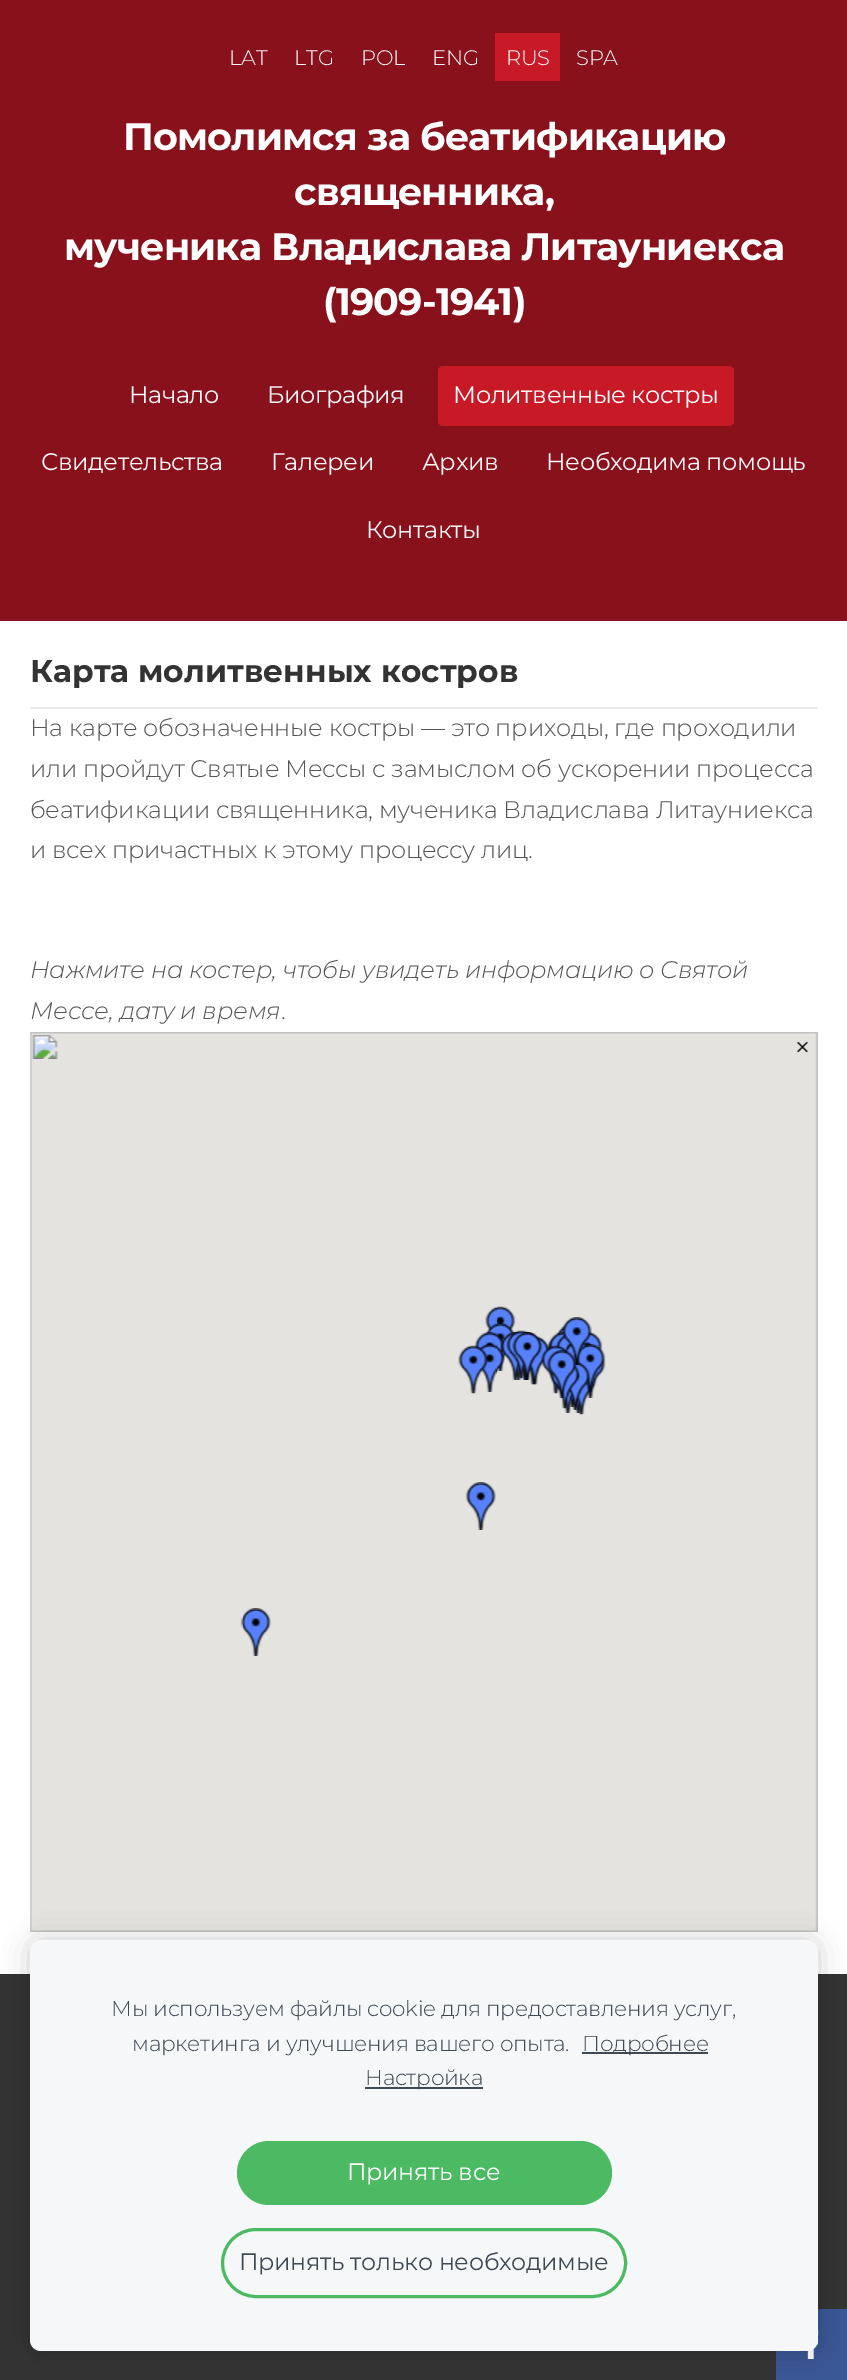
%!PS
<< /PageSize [847 2380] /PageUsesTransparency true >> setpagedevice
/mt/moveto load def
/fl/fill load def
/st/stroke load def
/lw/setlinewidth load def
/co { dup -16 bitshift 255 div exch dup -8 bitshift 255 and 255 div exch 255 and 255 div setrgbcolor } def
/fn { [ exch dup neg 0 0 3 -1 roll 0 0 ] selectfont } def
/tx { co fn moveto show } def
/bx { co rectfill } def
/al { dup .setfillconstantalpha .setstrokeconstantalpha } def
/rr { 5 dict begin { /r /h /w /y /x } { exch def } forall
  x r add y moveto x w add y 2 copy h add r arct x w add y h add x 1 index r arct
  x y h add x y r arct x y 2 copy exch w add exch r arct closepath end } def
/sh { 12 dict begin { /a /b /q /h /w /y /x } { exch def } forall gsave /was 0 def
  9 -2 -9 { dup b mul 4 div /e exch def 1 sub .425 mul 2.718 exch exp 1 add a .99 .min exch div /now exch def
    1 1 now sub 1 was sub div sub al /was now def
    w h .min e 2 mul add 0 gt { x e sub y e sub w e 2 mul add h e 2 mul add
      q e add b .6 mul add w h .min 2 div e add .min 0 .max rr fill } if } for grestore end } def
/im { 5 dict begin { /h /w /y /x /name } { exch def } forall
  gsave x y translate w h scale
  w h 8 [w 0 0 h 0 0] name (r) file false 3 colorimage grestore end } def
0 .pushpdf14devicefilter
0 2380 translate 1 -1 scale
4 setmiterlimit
0 0 847 2380 16#333333 bx
0 621 847 1353 16#FFFFFF bx
0 0 847 621 16#88111B bx
495 33 65 48 16#C81927 bx
438 366 296 60 5 rr fl
30 707 788 2 16#EBEBEB bx
(media/1.raw) 30 1032 788 900 im
776 2309 71 71 16#3A5795 bx
(media/2.raw) 807 2330 12 29 im
16#000000 co
30 1940 788 411 11 13 .2 sh
16#F6F7F9 co
30 1940 788 411 11 rr fl
582 2052 126 2 16#3F4954 bx
365 2087 118 2 16#3F4954 bx
16#4CB963 co
237 2141 375 64 32 rr fl
3 lw
222.5 2229.5 403 67 33.5 rr st
/Montserrat-Light 21 fn
16#F6F7F9 co
229 65 mt -.25 0 (LAT) ashow
294 65 mt -.25 0 (LTG) ashow
361 65 mt -.25 0 (POL) ashow
432 65 mt -.25 0 (ENG) ashow
16#FFFFFF co
506 65 mt -.25 0 (RUS) ashow
16#F6F7F9 co
576 65 mt -.25 0 (SPA) ashow
/Montserrat-Bold 38.1 fn
16#FFFFFF co
123 150 mt -.85 0 (Помолимся за беатификацию) ashow
294 205 mt -.85 0 (священника,) ashow
64 260 mt -.85 0 (мученика Владислава Литауниекса) ashow
323 315 mt -.85 0 (\(1909-1941\)) ashow
/Montserrat-Regular 24 fn
16#F6F7F9 co
129 403 mt -.4 0 (Начало) ashow
267 403 mt -.4 0 (Биография) ashow
16#FFFFFF co
453 403 mt -.4 0 (Молитвенные костры) ashow
16#F6F7F9 co
41 470 mt -.4 0 (Свидетельства) ashow
271 470 mt -.4 0 (Галереи) ashow
422 470 mt -.4 0 (Архив) ashow
546 470 mt -.4 0 (Необходима помощь) ashow
366 538 mt -.4 0 (Контакты) ashow
(Карта молитвенных костров) 30 682 /Montserrat-Bold 31.25 16#333333 tx
/Montserrat-Light 24 fn
16#555555 co
30 736 mt -.25 0 (На карте обозначенные костры — это приходы, где проходили) ashow
30 777 mt -.25 0 (или пройдут Святые Мессы с замыслом об ускорении процесса) ashow
30 818 mt -.25 0 (беатификации священника, мученика Владислава Литауниекса) ashow
30 858 mt -.25 0 (и всех причастных к этому процессу лиц.) ashow
/Montserrat-LightItalic 24 fn
30 978 mt -.25 0 (Нажмите на костер, чтобы увидеть информацию о Святой) ashow
30 1019 mt -.25 0 (Мессе, дату и время) ashow
/Montserrat-Light 24 fn
281 1019 mt -.25 0 (.) ashow
/Montserrat-Light 21.6 fn
16#3F4954 co
111 2016 mt -.25 0 (Мы используем файлы cookie для предоставления услуг,) ashow
132 2051 mt -.25 0 (маркетинга и улучшения вашего опыта.) ashow
582 2051 mt -.25 0 (Подробнее) ashow
365 2085 mt -.25 0 (Настройка) ashow
/Montserrat-Regular 23.75 fn
16#FFFFFF co
347 2180 mt -.25 0 (Принять все) ashow
16#3F4954 co
239 2270 mt -.25 0 (Принять только необходимые) ashow
.poppdf14devicefilter showpage
